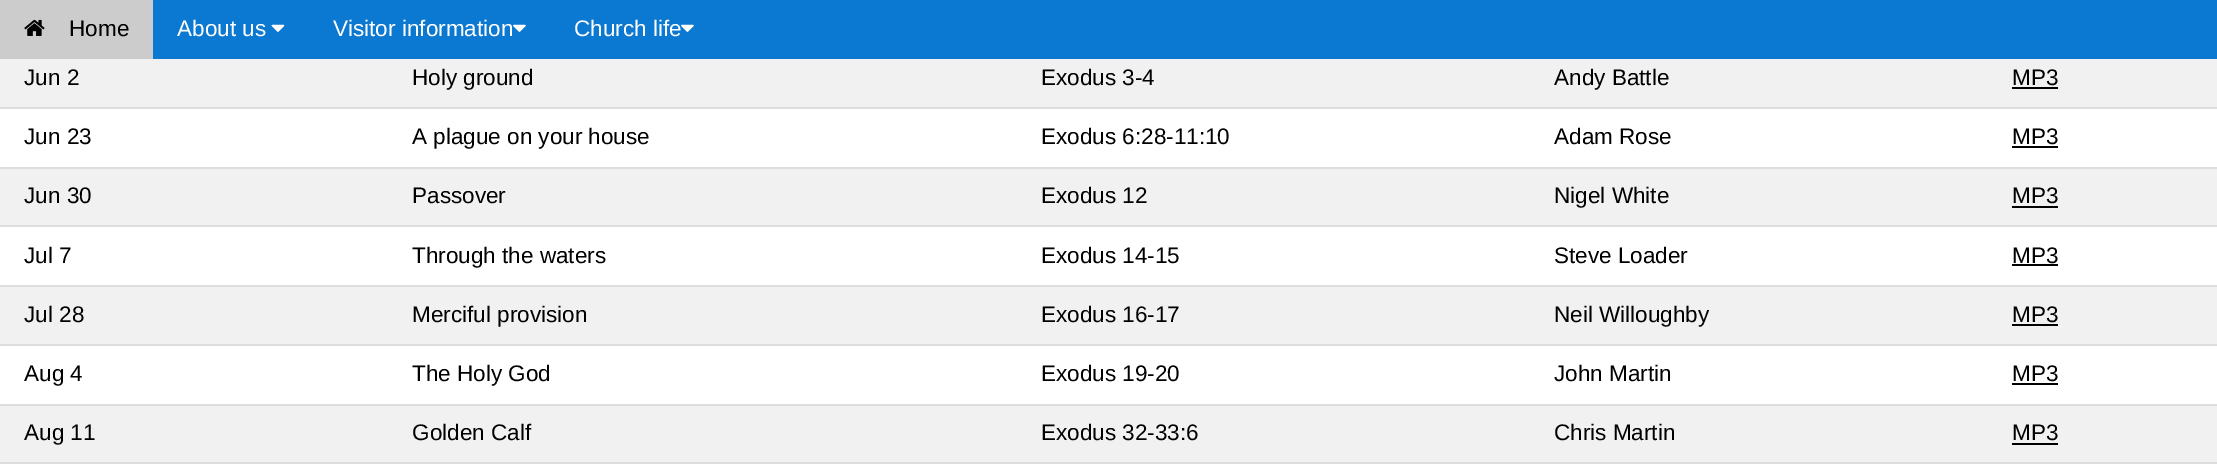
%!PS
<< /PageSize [2217 472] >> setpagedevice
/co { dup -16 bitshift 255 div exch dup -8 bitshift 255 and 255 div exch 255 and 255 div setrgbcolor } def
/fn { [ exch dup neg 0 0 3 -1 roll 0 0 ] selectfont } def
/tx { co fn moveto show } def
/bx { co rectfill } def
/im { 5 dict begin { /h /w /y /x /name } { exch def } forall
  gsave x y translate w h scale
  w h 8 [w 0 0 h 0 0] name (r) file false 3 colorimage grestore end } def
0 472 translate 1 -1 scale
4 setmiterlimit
0 0 2217 472 16#FFFFFF bx
153 0 2064 59 16#0B78D1 bx
0 0 153 59 16#CCCCCC bx
(media/1.raw) 24 19 21 17 im
(media/2.raw) 271 24 14 8 im
(media/3.raw) 513 24 13 8 im
(media/3.raw) 681 24 13 8 im
0 59 2217 48 16#F1F1F1 bx
0 107 2217 2 16#DDDDDD bx
2012 87 46 2 16#000000 bx
0 167 2217 2 16#DDDDDD bx
2012 146 46 2 16#000000 bx
0 169 2217 56 16#F1F1F1 bx
0 225 2217 2 16#DDDDDD bx
2012 206 46 2 16#000000 bx
0 285 2217 2 16#DDDDDD bx
2012 264 46 2 16#000000 bx
0 287 2217 57 16#F1F1F1 bx
0 344 2217 2 16#DDDDDD bx
2012 324 46 2 16#000000 bx
0 404 2217 2 16#DDDDDD bx
2012 383 46 2 16#000000 bx
0 406 2217 56 16#F1F1F1 bx
0 462 2217 2 16#DDDDDD bx
2012 443 46 2 16#000000 bx
(Home) 69 36 /LiberationSans-Regular 22.5 16#000000 tx
(About us) 177 36 /LiberationSans-Regular 22.5 16#FFFFFF tx
(Visitor information) 333 36 /LiberationSans-Regular 22.5 16#FFFFFF tx
(Church life) 574 36 /LiberationSans-Regular 22.5 16#FFFFFF tx
(Jun 2) 24 85 /LiberationSans-Regular 22.5 16#000000 tx
(Holy ground) 412 85 /LiberationSans-Regular 22.5 16#000000 tx
(Exodus 3-4) 1041 85 /LiberationSans-Regular 22.5 16#000000 tx
(Andy Battle) 1554 85 /LiberationSans-Regular 22.5 16#000000 tx
(MP3) 2012 85 /LiberationSans-Regular 22.5 16#000000 tx
(Jun 23) 24 144 /LiberationSans-Regular 22.5 16#000000 tx
(A plague on your house) 412 144 /LiberationSans-Regular 22.5 16#000000 tx
(Exodus 6:28-11:10) 1041 144 /LiberationSans-Regular 22.5 16#000000 tx
(Adam Rose) 1554 144 /LiberationSans-Regular 22.5 16#000000 tx
(MP3) 2012 144 /LiberationSans-Regular 22.5 16#000000 tx
(Jun 30) 24 203 /LiberationSans-Regular 22.5 16#000000 tx
(Passover) 412 203 /LiberationSans-Regular 22.5 16#000000 tx
(Exodus 12) 1041 203 /LiberationSans-Regular 22.5 16#000000 tx
(Nigel White) 1554 203 /LiberationSans-Regular 22.5 16#000000 tx
(MP3) 2012 203 /LiberationSans-Regular 22.5 16#000000 tx
(Jul 7) 24 263 /LiberationSans-Regular 22.5 16#000000 tx
(Through the waters) 412 263 /LiberationSans-Regular 22.5 16#000000 tx
(Exodus 14-15) 1041 263 /LiberationSans-Regular 22.5 16#000000 tx
(Steve Loader) 1554 263 /LiberationSans-Regular 22.5 16#000000 tx
(MP3) 2012 263 /LiberationSans-Regular 22.5 16#000000 tx
(Jul 28) 24 322 /LiberationSans-Regular 22.5 16#000000 tx
(Merciful provision) 412 322 /LiberationSans-Regular 22.5 16#000000 tx
(Exodus 16-17) 1041 322 /LiberationSans-Regular 22.5 16#000000 tx
(Neil Willoughby) 1554 322 /LiberationSans-Regular 22.5 16#000000 tx
(MP3) 2012 322 /LiberationSans-Regular 22.5 16#000000 tx
(Aug 4) 24 381 /LiberationSans-Regular 22.5 16#000000 tx
(The Holy God) 412 381 /LiberationSans-Regular 22.5 16#000000 tx
(Exodus 19-20) 1041 381 /LiberationSans-Regular 22.5 16#000000 tx
(John Martin) 1554 381 /LiberationSans-Regular 22.5 16#000000 tx
(MP3) 2012 381 /LiberationSans-Regular 22.5 16#000000 tx
(Aug 11) 24 440 /LiberationSans-Regular 22.5 16#000000 tx
(Golden Calf) 412 440 /LiberationSans-Regular 22.5 16#000000 tx
(Exodus 32-33:6) 1041 440 /LiberationSans-Regular 22.5 16#000000 tx
(Chris Martin) 1554 440 /LiberationSans-Regular 22.5 16#000000 tx
(MP3) 2012 440 /LiberationSans-Regular 22.5 16#000000 tx
showpage
